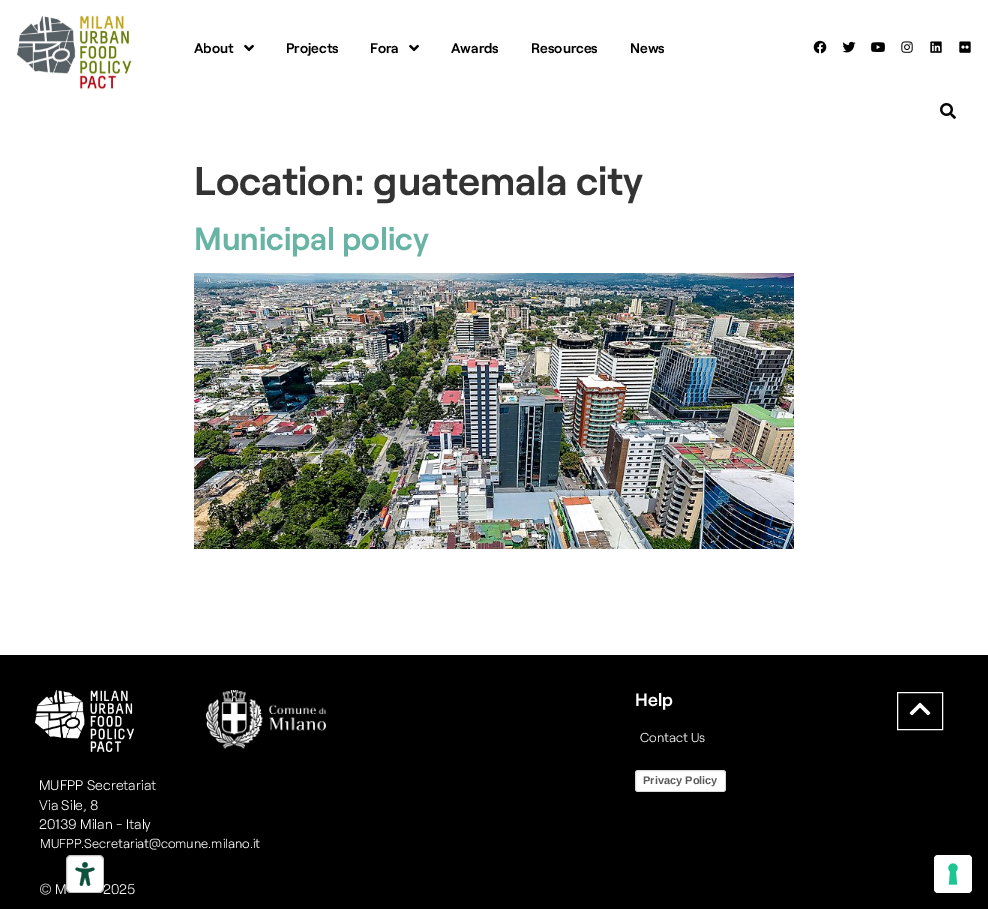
%!PS
<< /PageSize [988 909] /PageUsesTransparency true >> setpagedevice
/fl/fill load def
/st/stroke load def
/co { dup -16 bitshift 255 div exch dup -8 bitshift 255 and 255 div exch 255 and 255 div setrgbcolor } def
/fn { [ exch dup neg 0 0 3 -1 roll 0 0 ] selectfont } def
/tx { co fn moveto show } def
/bx { co rectfill } def
/al { dup .setfillconstantalpha .setstrokeconstantalpha } def
/rr { 5 dict begin { /r /h /w /y /x } { exch def } forall
  x r add y moveto x w add y 2 copy h add r arct x w add y h add x 1 index r arct
  x y h add x y r arct x y 2 copy exch w add exch r arct closepath end } def
/im { 5 dict begin { /h /w /y /x /name } { exch def } forall
  gsave x y translate w h scale
  w h 8 [w 0 0 h 0 0] name (r) file false 3 colorimage grestore end } def
0 .pushpdf14devicefilter
0 909 translate 1 -1 scale
4 setmiterlimit
0 0 988 909 16#FFFFFF bx
(media/1.raw) 15 15 118 75 im
(media/2.raw) 244 44 10 8 im
(media/2.raw) 409 44 10 8 im
(media/3.raw) 813 40 14 14 im
(media/4.raw) 842 41 14 12 im
(media/5.raw) 871 42 14 10 im
(media/6.raw) 901 41 12 12 im
(media/7.raw) 930 41 12 12 im
(media/8.raw) 959 41 12 12 im
(media/9.raw) 940 103 16 16 im
(media/10.raw) 194 273 600 276 im
0 655 988 254 16#000000 bx
16#FFFFFF co
897.5 692.5 45 37 rectstroke
(media/11.raw) 909 702 22 14 im
635 770 91 22 3 rr fl
0.15 al
16#000000 co
635.5 770.5 90 21 2.5 rr st
1 al
(media/12.raw) 35 690 99 62 im
(media/13.raw) 206 690 120 59 im
16#FFFFFF co
66 855 38 38 5 rr fl
(media/14.raw) 75 862 20 24 im
0.24 al
16#000000 co
66.5 855.5 37 37 4.5 rr st
1 al
16#FFFFFF co
934 855 38 38 4 rr fl
(media/15.raw) 948 863 10 22 im
(About) 194 53 /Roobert-SemiBold 14 16#000000 tx
(Projects) 286 53 /Roobert-SemiBold 14 16#000000 tx
(Fora) 370 53 /Roobert-SemiBold 14 16#000000 tx
(Awards) 451 53 /Roobert-SemiBold 14 16#000000 tx
(Resources) 531 53 /Roobert-SemiBold 14 16#000000 tx
(News) 630 53 /Roobert-SemiBold 14 16#000000 tx
(Location: guatemala city) 194 195 /Roobert-SemiBold 40 16#333333 tx
(Municipal policy) 194 250 /Roobert-SemiBold 32 16#67B3A4 tx
(Help) 635 706 /Roobert-SemiBold 18 16#FFFFFF tx
(Contact Us) 640 742 /Roobert-Light 13 16#FFFFFF tx
(Privacy Policy) 643 784 /LiberationSans-Bold 11 16#595959 tx
(MUFPP Secretariat) 39 790 /Roobert-Light 14 16#FFFFFF tx
(Via Sile, 8) 39 810 /Roobert-Light 14 16#FFFFFF tx
(20139 Milan - Italy) 39 829 /Roobert-Light 14 16#FFFFFF tx
(MUFPP.Secretariat@comune.milano.it) 40 848 /Roobert-Light 13 16#FFFFFF tx
(© M) 39 894 /Roobert-Light 14 16#FFFFFF tx
(2025) 103 894 /Roobert-Light 14 16#FFFFFF tx
.poppdf14devicefilter showpage
